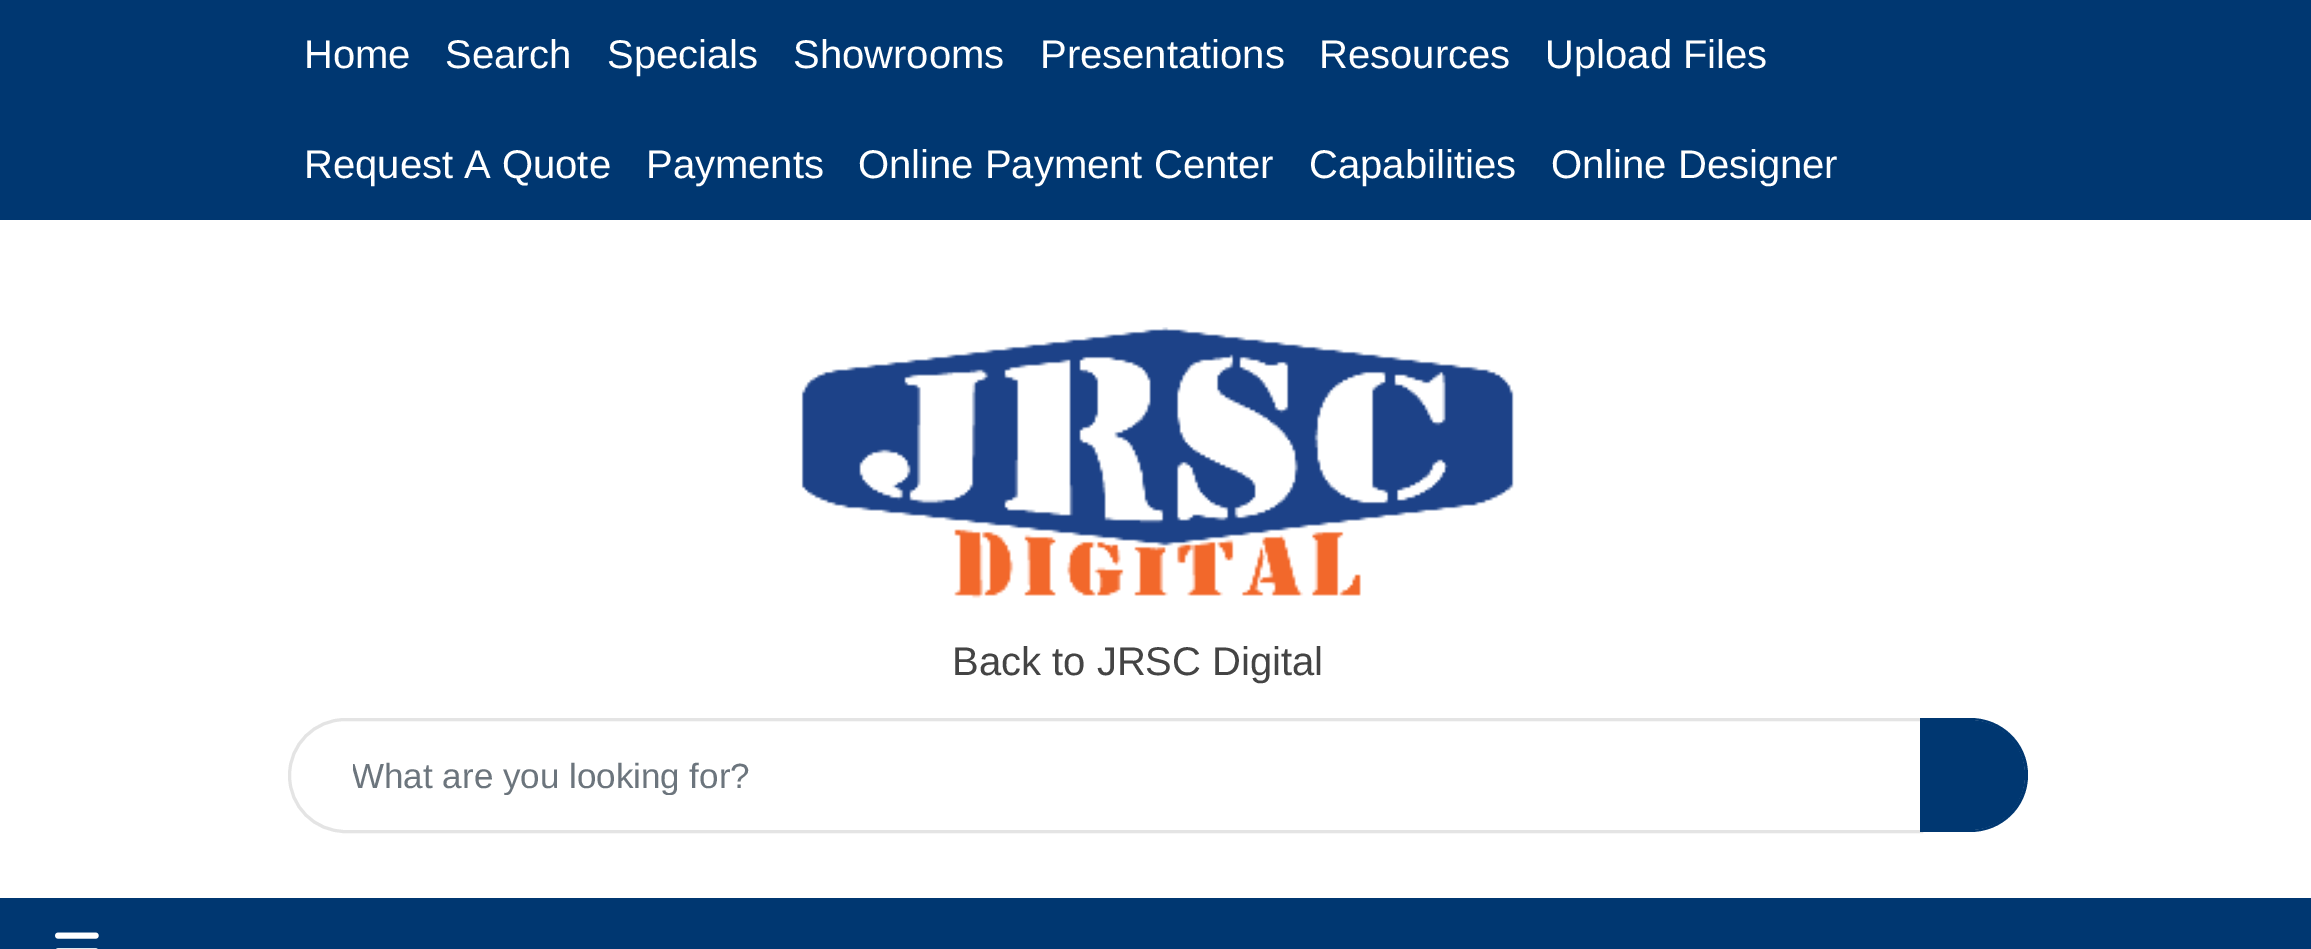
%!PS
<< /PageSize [2311 949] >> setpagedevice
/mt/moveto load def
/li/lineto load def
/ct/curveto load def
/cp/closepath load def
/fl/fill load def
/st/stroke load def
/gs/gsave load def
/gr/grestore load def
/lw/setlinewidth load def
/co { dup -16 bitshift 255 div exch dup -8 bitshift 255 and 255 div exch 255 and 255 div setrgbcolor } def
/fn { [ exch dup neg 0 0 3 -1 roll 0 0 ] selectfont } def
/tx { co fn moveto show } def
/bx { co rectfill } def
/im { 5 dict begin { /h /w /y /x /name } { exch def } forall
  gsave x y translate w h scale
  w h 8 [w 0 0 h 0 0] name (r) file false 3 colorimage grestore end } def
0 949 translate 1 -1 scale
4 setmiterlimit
0 0 2311 949 16#FFFFFF bx
0 0 2311 220 16#003771 bx
(media/1.raw) 801 327 713 272 im
16#E4E4E4 co
3 lw
345.5 719.5 mt 1921.5 719.5 li 1921.5 831.5 li 345.5 831.5 li 314.5 831.5 289.5 806.5 289.5 775.5 ct 289.5 744.5 314.5 719.5 345.5 719.5 ct cp st
16#003771 co
1920 720 mt 1970 720 li 2000.5 720 2025 744.5 2025 775 ct 2025 805.5 2000.5 830 1970 830 ct 1920 830 li cp fl
1920 718 mt 1970 718 li 2002 718 2028 743 2028 775 ct 2028 807 2002 832 1970 832 ct 1920 832 li cp 1920 720 mt 1970 720 li 2000 720 2025 745 2025 775 ct 2025 805 2000 830 1970 830 ct 1920 830 li cp eofill
0 898 2311 51 16#003771 bx
(media/2.raw) 55 932 44 17 im
(Home) 304 68 /LiberationSans-Regular 40 16#FFFFFF tx
(Search) 445 68 /LiberationSans-Regular 40 16#FFFFFF tx
(Specials) 607 68 /LiberationSans-Regular 40 16#FFFFFF tx
(Showrooms) 793 68 /LiberationSans-Regular 40 16#FFFFFF tx
(Presentations) 1040 68 /LiberationSans-Regular 40 16#FFFFFF tx
(Resources) 1319 68 /LiberationSans-Regular 40 16#FFFFFF tx
(Upload Files) 1545 68 /LiberationSans-Regular 40 16#FFFFFF tx
(Request A Quote) 304 178 /LiberationSans-Regular 40 16#FFFFFF tx
(Payments) 646 178 /LiberationSans-Regular 40 16#FFFFFF tx
(Online Payment Center) 858 178 /LiberationSans-Regular 40 16#FFFFFF tx
(Capabilities) 1309 178 /LiberationSans-Regular 40 16#FFFFFF tx
(Online Designer) 1551 178 /LiberationSans-Regular 40 16#FFFFFF tx
(Back to JRSC Digital) 952 675 /LiberationSans-Regular 40 16#444444 tx
gs
353 755 1537 40 rectclip
(What are you looking for?) 351 788 /LiberationSans-Regular 35 16#6C757D tx
gr
showpage
